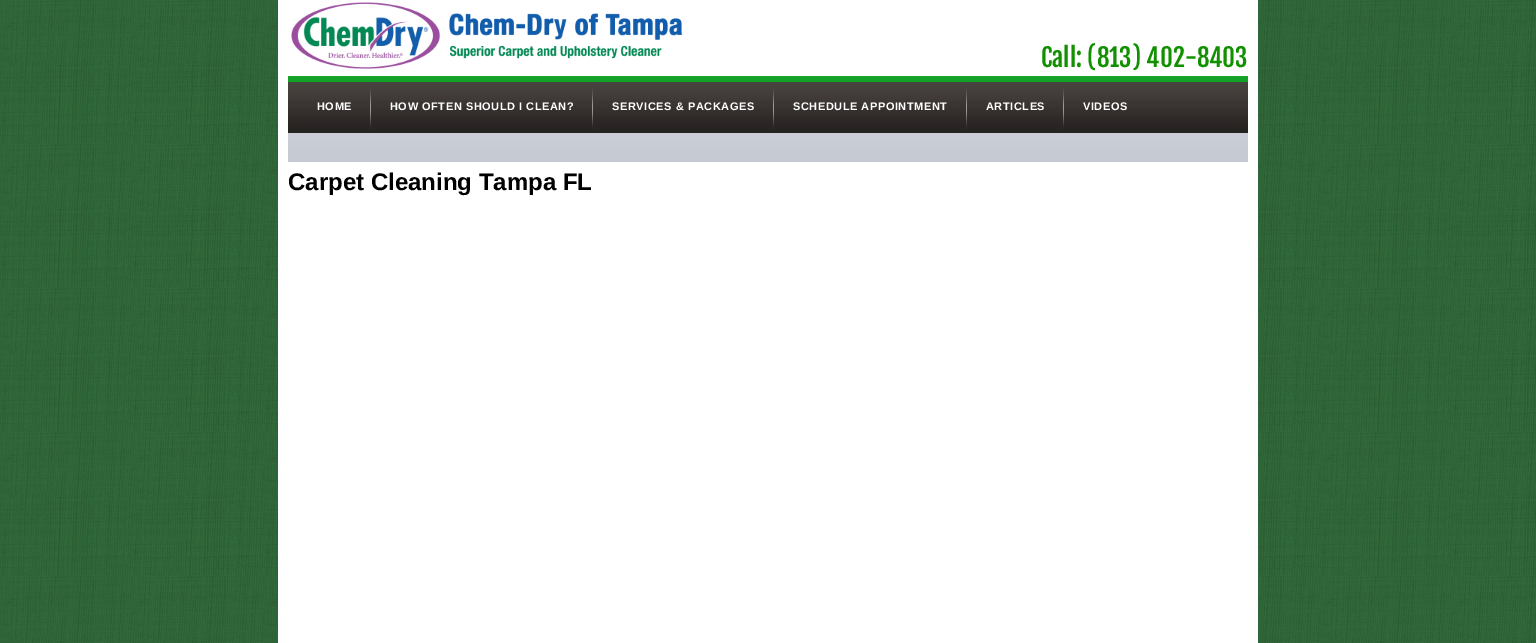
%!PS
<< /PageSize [1536 643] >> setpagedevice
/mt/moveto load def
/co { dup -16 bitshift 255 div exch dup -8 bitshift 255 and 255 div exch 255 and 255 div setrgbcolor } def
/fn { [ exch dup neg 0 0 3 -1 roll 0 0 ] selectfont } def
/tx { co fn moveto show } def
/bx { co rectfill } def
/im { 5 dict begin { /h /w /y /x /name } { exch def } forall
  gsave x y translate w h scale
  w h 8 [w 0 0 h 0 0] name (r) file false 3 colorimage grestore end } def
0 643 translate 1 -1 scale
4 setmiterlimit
0 0 1536 643 16#FFFFFF bx
(media/1.raw) 0 0 1536 643 im
278 0 980 643 16#FFFFFF bx
(media/2.raw) 291 2 392 68 im
(media/3.raw) 288 73 960 89 im
(media/4.raw) 370 82 1 48 im
(media/4.raw) 592 82 1 48 im
(media/4.raw) 773 82 1 48 im
(media/4.raw) 966 82 1 48 im
(media/4.raw) 1063 82 1 48 im
(Call: \(813\) 402-8403) 1041 67 /FjallaOne-Regular 25 16#119000 tx
(Carpet Cleaning Tampa FL) 288 190 /LiberationSans-Bold 24 16#000000 tx
/LiberationSans-Bold 11 fn
16#FFFFFF co
317 110 mt .55 0 (HOME) ashow
390 110 mt .55 0 (HOW OFTEN SHOULD I CLEAN?) ashow
612 110 mt .55 0 (SERVICES & PACKAGES) ashow
793 110 mt .55 0 (SCHEDULE APPOINTMENT) ashow
986 110 mt .55 0 (ARTICLES) ashow
1083 110 mt .55 0 (VIDEOS) ashow
showpage
